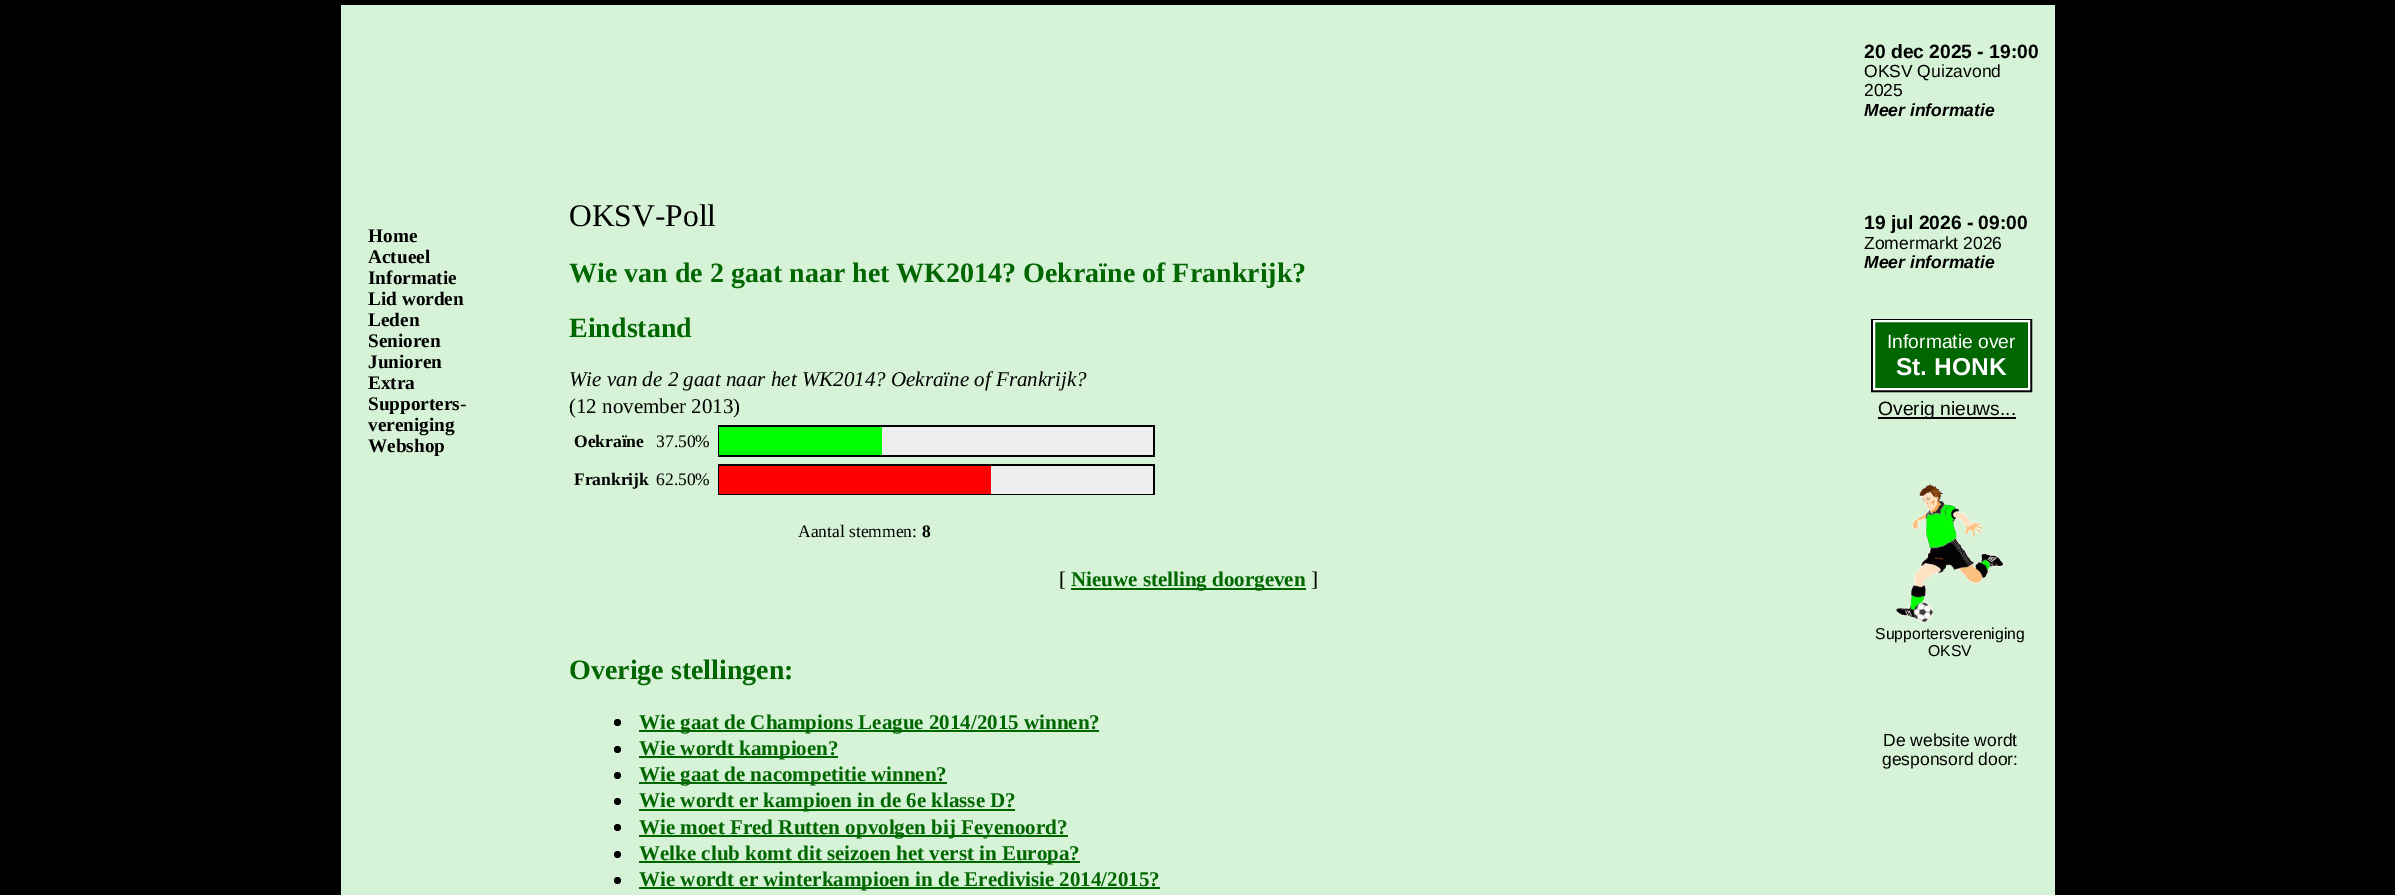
%!PS
<< /PageSize [2395 895] >> setpagedevice
/mt/moveto load def
/li/lineto load def
/cp/closepath load def
/fl/fill load def
/st/stroke load def
/gs/gsave load def
/gr/grestore load def
/lw/setlinewidth load def
/co { dup -16 bitshift 255 div exch dup -8 bitshift 255 and 255 div exch 255 and 255 div setrgbcolor } def
/fn { [ exch dup neg 0 0 3 -1 roll 0 0 ] selectfont } def
/tx { co fn moveto show } def
/bx { co rectfill } def
/ci { newpath 0 360 arc closepath } def
/im { 5 dict begin { /h /w /y /x /name } { exch def } forall
  gsave x y translate w h scale
  w h 8 [w 0 0 h 0 0] name (r) file false 3 colorimage grestore end } def
0 895 translate 1 -1 scale
4 setmiterlimit
0 0 2395 895 16#000000 bx
341 5 228 890 16#D7F3D7 bx
569 5 1486 890 16#D7F3D7 bx
718 425 437 32 16#000000 bx
719 427 163 28 16#00FF00 bx
882 427 271 28 16#EEEEEE bx
718 464 437 31 16#000000 bx
719 466 272 28 16#FF0000 bx
991 466 162 28 16#EEEEEE bx
1071 588 235 2 16#006600 bx
16#000000 co
617.5 722.5 3.5 ci fl
639 730 460 2 16#006600 bx
16#000000 co
617.5 749.5 3.5 ci fl
639 756 199 2 16#006600 bx
16#000000 co
617.5 775.5 3.5 ci fl
639 782 308 2 16#006600 bx
16#000000 co
617.5 801.5 3.5 ci fl
639 809 376 2 16#006600 bx
16#000000 co
617.5 827.5 3.5 ci fl
639 835 429 2 16#006600 bx
16#000000 co
617.5 854.5 3.5 ci fl
639 861 441 2 16#006600 bx
16#000000 co
617.5 880.5 3.5 ci fl
639 887 521 2 16#006600 bx
16#000000 co
2 lw
1872 320 159 71 rectstroke
16#006600 co
1874 321 mt 2029 321 li 2029 389 li 1874 389 li cp gs fl gr
16#FFFFFF co
st
1878 417 138 2 16#000000 bx
(media/1.raw) 1896 484 108 138 im
(Home) 368 242 /LiberationSerif-Bold 19.25 16#000000 tx
(Actueel) 368 263 /LiberationSerif-Bold 19.25 16#000000 tx
(Informatie) 368 284 /LiberationSerif-Bold 19.25 16#000000 tx
(Lid worden) 368 305 /LiberationSerif-Bold 19.25 16#000000 tx
(Leden) 368 326 /LiberationSerif-Bold 19.25 16#000000 tx
(Senioren) 368 347 /LiberationSerif-Bold 19.25 16#000000 tx
(Junioren) 368 368 /LiberationSerif-Bold 19.25 16#000000 tx
(Extra) 368 389 /LiberationSerif-Bold 19.25 16#000000 tx
(Supporters-) 368 410 /LiberationSerif-Bold 19.25 16#000000 tx
(vereniging) 368 431 /LiberationSerif-Bold 19.25 16#000000 tx
(Webshop) 368 452 /LiberationSerif-Bold 19.25 16#000000 tx
(OKSV-Poll) 569 226 /LiberationSerif-Regular 31.5 16#000000 tx
(Wie van de 2 gaat naar het WK2014? Oekraïne of Frankrijk?) 569 282 /LiberationSerif-Bold 28 16#006600 tx
(Eindstand) 569 337 /LiberationSerif-Bold 28 16#006600 tx
(Wie van de 2 gaat naar het WK2014? Oekraïne of Frankrijk?) 569 386 /LiberationSerif-Italic 21 16#000000 tx
(\(12 november 2013\)) 569 413 /LiberationSerif-Regular 21 16#000000 tx
(Oekraïne) 574 447 /LiberationSerif-Bold 17.5 16#000000 tx
(37.50%) 656 447 /LiberationSerif-Regular 17.5 16#000000 tx
(Frankrijk) 574 485 /LiberationSerif-Bold 17.5 16#000000 tx
(62.50%) 656 485 /LiberationSerif-Regular 17.5 16#000000 tx
(Aantal stemmen:) 798 537 /LiberationSerif-Regular 17.5 16#000000 tx
(8) 922 537 /LiberationSerif-Bold 17.5 16#000000 tx
([) 1059 586 /LiberationSerif-Regular 21 16#000000 tx
(Nieuwe stelling doorgeven) 1071 586 /LiberationSerif-Bold 21 16#006600 tx
(]) 1311 586 /LiberationSerif-Regular 21 16#000000 tx
(Overige stellingen:) 569 679 /LiberationSerif-Bold 28 16#006600 tx
(Wie gaat de Champions League 2014/2015 winnen?) 639 729 /LiberationSerif-Bold 21 16#006600 tx
(Wie wordt kampioen?) 639 755 /LiberationSerif-Bold 21 16#006600 tx
(Wie gaat de nacompetitie winnen?) 639 781 /LiberationSerif-Bold 21 16#006600 tx
(Wie wordt er kampioen in de 6e klasse D?) 639 807 /LiberationSerif-Bold 21 16#006600 tx
(Wie moet Fred Rutten opvolgen bij Feyenoord?) 639 834 /LiberationSerif-Bold 21 16#006600 tx
(Welke club komt dit seizoen het verst in Europa?) 639 860 /LiberationSerif-Bold 21 16#006600 tx
(Wie wordt er winterkampioen in de Eredivisie 2014/2015?) 639 886 /LiberationSerif-Bold 21 16#006600 tx
(20 dec 2025 - 19:00) 1864 58 /LiberationSans-Bold 19.25 16#000000 tx
(OKSV Quizavond) 1864 77 /LiberationSans-Regular 17.5 16#000000 tx
(2025) 1864 96 /LiberationSans-Regular 17.5 16#000000 tx
(Meer informatie) 1864 116 /LiberationSans-BoldItalic 17.5 16#000000 tx
(19 jul 2026 - 09:00) 1864 229 /LiberationSans-Bold 19.25 16#000000 tx
(Zomermarkt 2026) 1864 249 /LiberationSans-Regular 17.5 16#000000 tx
(Meer informatie) 1864 268 /LiberationSans-BoldItalic 17.5 16#000000 tx
(Informatie over) 1887 348 /LiberationSans-Regular 19.25 16#FFFFFF tx
(St. HONK) 1896 375 /LiberationSans-Bold 24.5 16#FFFFFF tx
(Overig nieuws...) 1878 415 /LiberationSans-Regular 19.25 16#000000 tx
(Supportersvereniging) 1875 639 /LiberationSans-Regular 15.75 16#000000 tx
(OKSV) 1928 656 /LiberationSans-Regular 15.75 16#000000 tx
(De website wordt) 1883 746 /LiberationSans-Regular 17.5 16#000000 tx
(gesponsord door:) 1882 765 /LiberationSans-Regular 17.5 16#000000 tx
showpage
